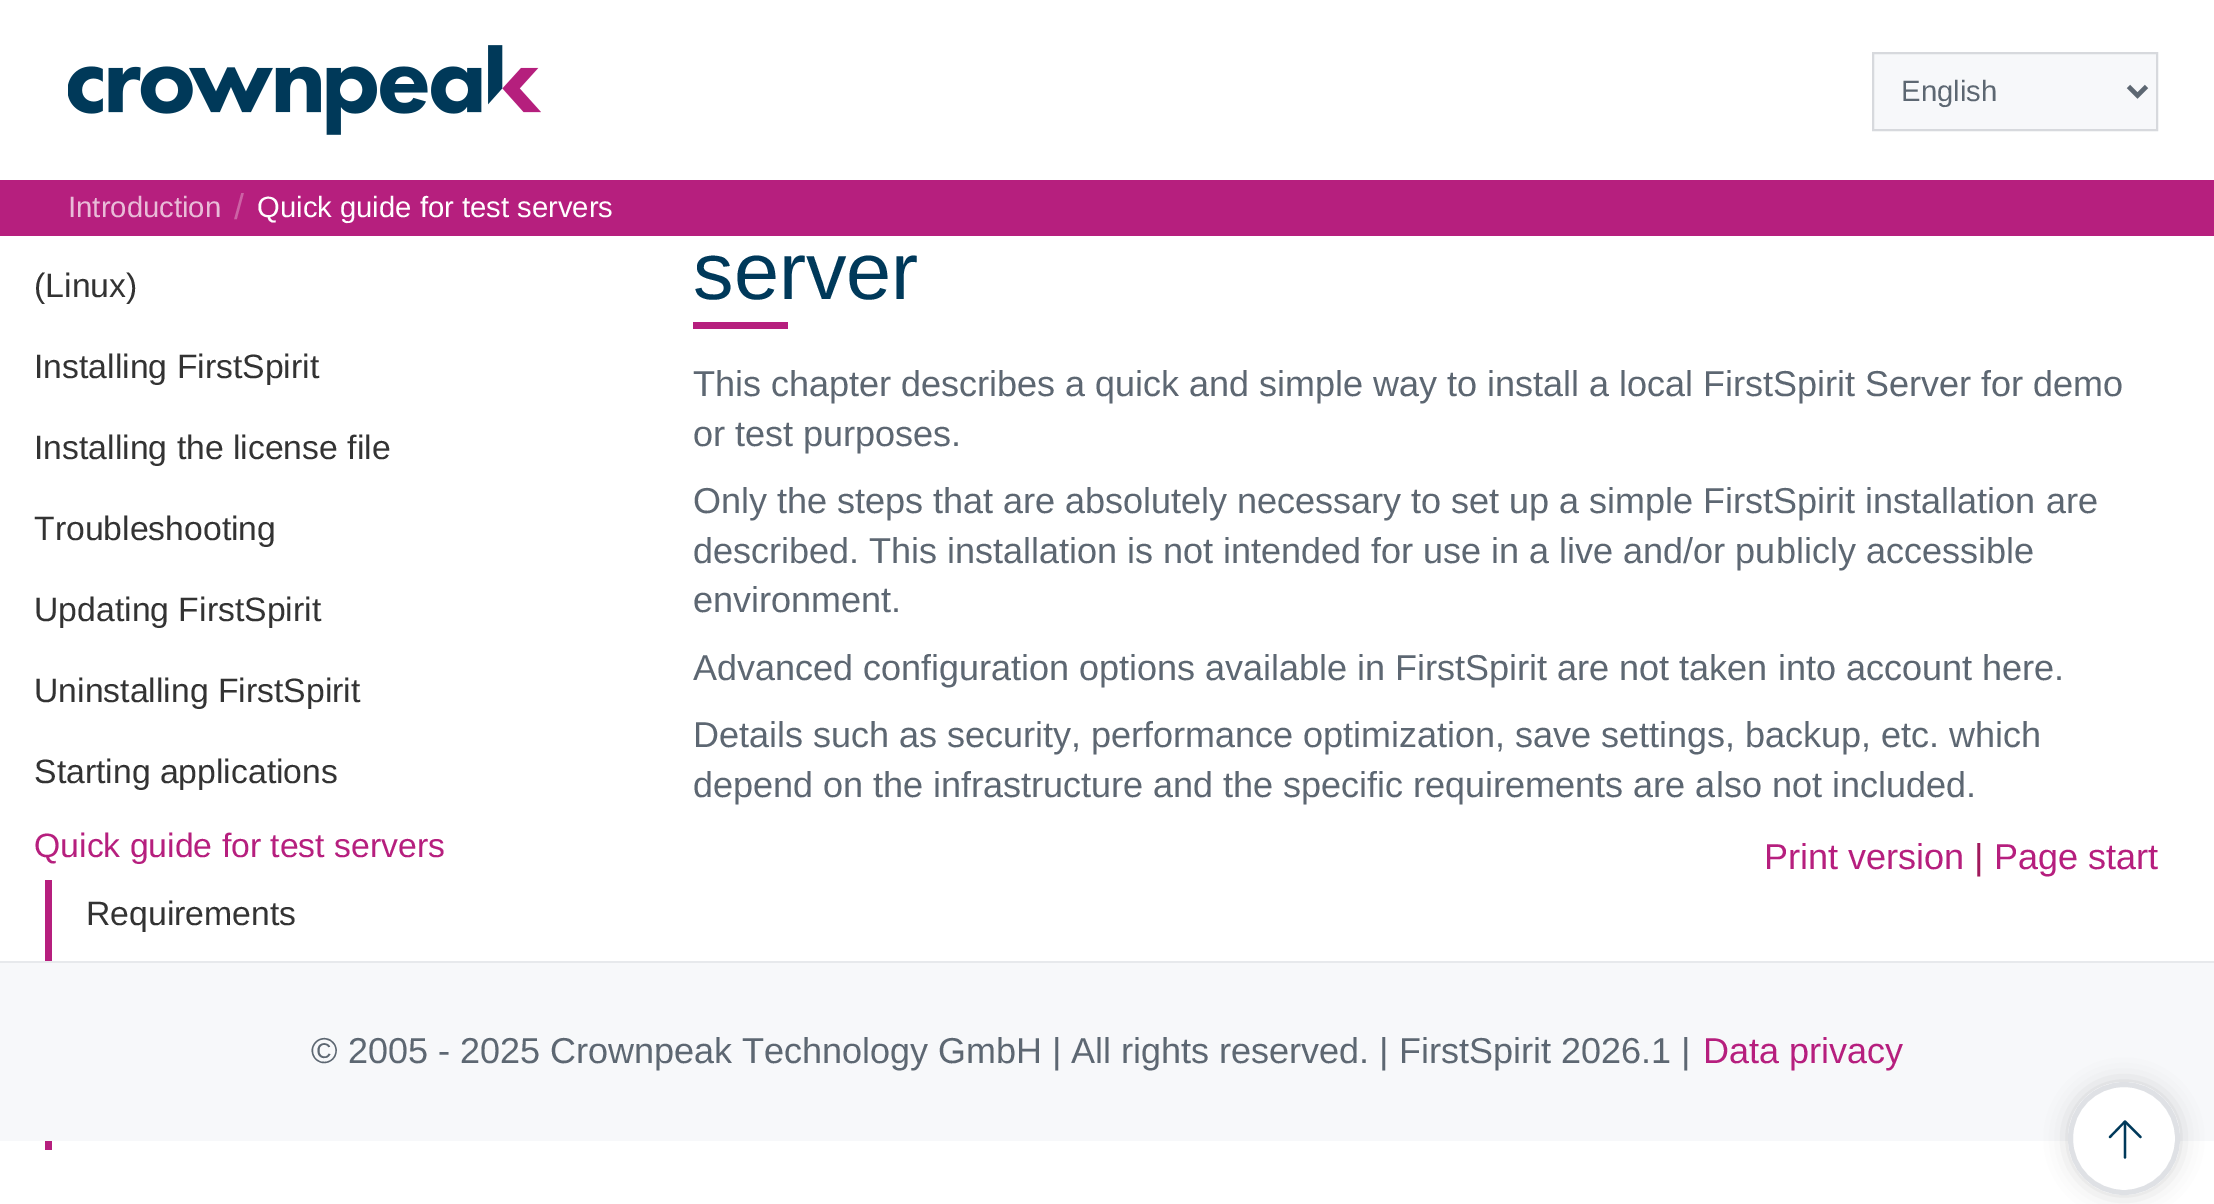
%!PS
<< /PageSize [2214 1204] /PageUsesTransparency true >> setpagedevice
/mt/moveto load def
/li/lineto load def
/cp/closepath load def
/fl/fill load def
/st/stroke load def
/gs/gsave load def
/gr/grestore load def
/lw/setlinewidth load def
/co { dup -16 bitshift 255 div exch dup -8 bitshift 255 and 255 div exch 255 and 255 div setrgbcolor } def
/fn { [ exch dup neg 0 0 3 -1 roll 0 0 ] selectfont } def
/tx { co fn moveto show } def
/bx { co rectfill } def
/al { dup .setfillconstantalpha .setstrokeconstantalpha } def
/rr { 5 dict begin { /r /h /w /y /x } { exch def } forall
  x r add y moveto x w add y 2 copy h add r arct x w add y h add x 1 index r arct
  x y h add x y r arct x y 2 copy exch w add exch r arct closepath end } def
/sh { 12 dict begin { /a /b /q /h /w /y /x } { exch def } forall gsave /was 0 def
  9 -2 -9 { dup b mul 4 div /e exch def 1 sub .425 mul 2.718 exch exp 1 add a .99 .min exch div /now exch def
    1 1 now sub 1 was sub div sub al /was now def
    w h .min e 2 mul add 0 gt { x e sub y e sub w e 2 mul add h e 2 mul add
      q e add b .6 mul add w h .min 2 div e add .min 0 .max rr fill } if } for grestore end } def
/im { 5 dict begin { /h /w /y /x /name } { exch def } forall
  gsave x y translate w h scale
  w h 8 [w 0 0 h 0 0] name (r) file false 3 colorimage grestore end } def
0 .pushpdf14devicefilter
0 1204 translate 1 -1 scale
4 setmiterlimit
0 0 2214 1204 16#FFFFFF bx
(media/1.raw) 68 45 473 90 im
0 963 2214 178 16#F7F8FA bx
16#333333 co
2068 1082 112 113 56 11 .2 sh
16#FFFFFF co
2068 1082 112 113 56 rr fl
16#00395A co
2.2 lw
1 setlinecap
2125 1157.5 mt 2125 1124 li st
1 setlinejoin
2140.5 1137 mt 2125 1121.5 li 2110 1137 li st
16#DFE1E5 co
5 lw
0 setlinecap
0 setlinejoin
2070.5 1084.5 107 108 53.5 rr st
16#F7F8FA co
1873 53 mt 2157 53 li 2157 130 li 1873 130 li cp gs fl gr
16#D7D9DD co
2 lw
st
16#5D6772 co
4.5 lw
2128.5 86.5 mt 2137.5 95.5 li 2146.5 86.5 li st
0 180 2214 56 16#B61F7E bx
693 322 95 7 16#B61F7E bx
0 961 2214 2 16#E7E9EC bx
45 880 7 81 16#B61F7E bx
45 1141 7 9 16#B61F7E bx
(English) 1901 101 /LiberationSans-Regular 29.25 16#5D6772 tx
(Introduction) 68 217 /LiberationSans-Regular 29.25 16#E9BCD8 tx
(/) 234 219 /LiberationSans-Regular 36 16#CC62A5 tx
(Quick guide for test servers) 257 217 /LiberationSans-Regular 29.25 16#FFFFFF tx
(server) 693 299 /LiberationSans-Regular 81 16#00395A tx
(This chapter describes a quick and simple way to install a local FirstSpirit Server for demo) 693 396 /LiberationSans-Regular 36 16#5D6772 tx
(or test purposes.) 693 446 /LiberationSans-Regular 36 16#5D6772 tx
(Only the steps that are absolutely necessary to set up a simple FirstSpirit installation are) 693 513 /LiberationSans-Regular 36 16#5D6772 tx
(described. This installation is not intended for use in a live and/or publicly accessible) 693 563 /LiberationSans-Regular 36 16#5D6772 tx
(environment.) 693 612 /LiberationSans-Regular 36 16#5D6772 tx
(Advanced configuration options available in FirstSpirit are not taken into account here.) 693 680 /LiberationSans-Regular 36 16#5D6772 tx
(Details such as security, performance optimization, save settings, backup, etc. which) 693 747 /LiberationSans-Regular 36 16#5D6772 tx
(depend on the infrastructure and the specific requirements are also not included.) 693 797 /LiberationSans-Regular 36 16#5D6772 tx
(Print version) 1764 869 /LiberationSans-Regular 36 16#B61F7E tx
(|) 1974 869 /LiberationSans-Regular 36 16#A0195C tx
(Page start) 1994 869 /LiberationSans-Regular 36 16#B61F7E tx
(© 2005 - 2025 Crownpeak Technology GmbH | All rights reserved. | FirstSpirit 2026.1 |) 311 1063 /LiberationSans-Regular 36 16#5D6772 tx
(Data privacy) 1703 1063 /LiberationSans-Regular 36 16#B61F7E tx
(\(Linux\)) 34 297 /LiberationSans-Regular 33.75 16#333333 tx
(Installing FirstSpirit) 34 378 /LiberationSans-Regular 33.75 16#333333 tx
(Installing the license file) 34 459 /LiberationSans-Regular 33.75 16#333333 tx
(Troubleshooting) 34 540 /LiberationSans-Regular 33.75 16#333333 tx
(Updating FirstSpirit) 34 621 /LiberationSans-Regular 33.75 16#333333 tx
(Uninstalling FirstSpirit) 34 702 /LiberationSans-Regular 33.75 16#333333 tx
(Starting applications) 34 783 /LiberationSans-Regular 33.75 16#333333 tx
(Quick guide for test servers) 34 857 /LiberationSans-Regular 33.75 16#B61F7E tx
(Requirements) 86 925 /LiberationSans-Regular 33.75 16#333333 tx
.poppdf14devicefilter showpage
